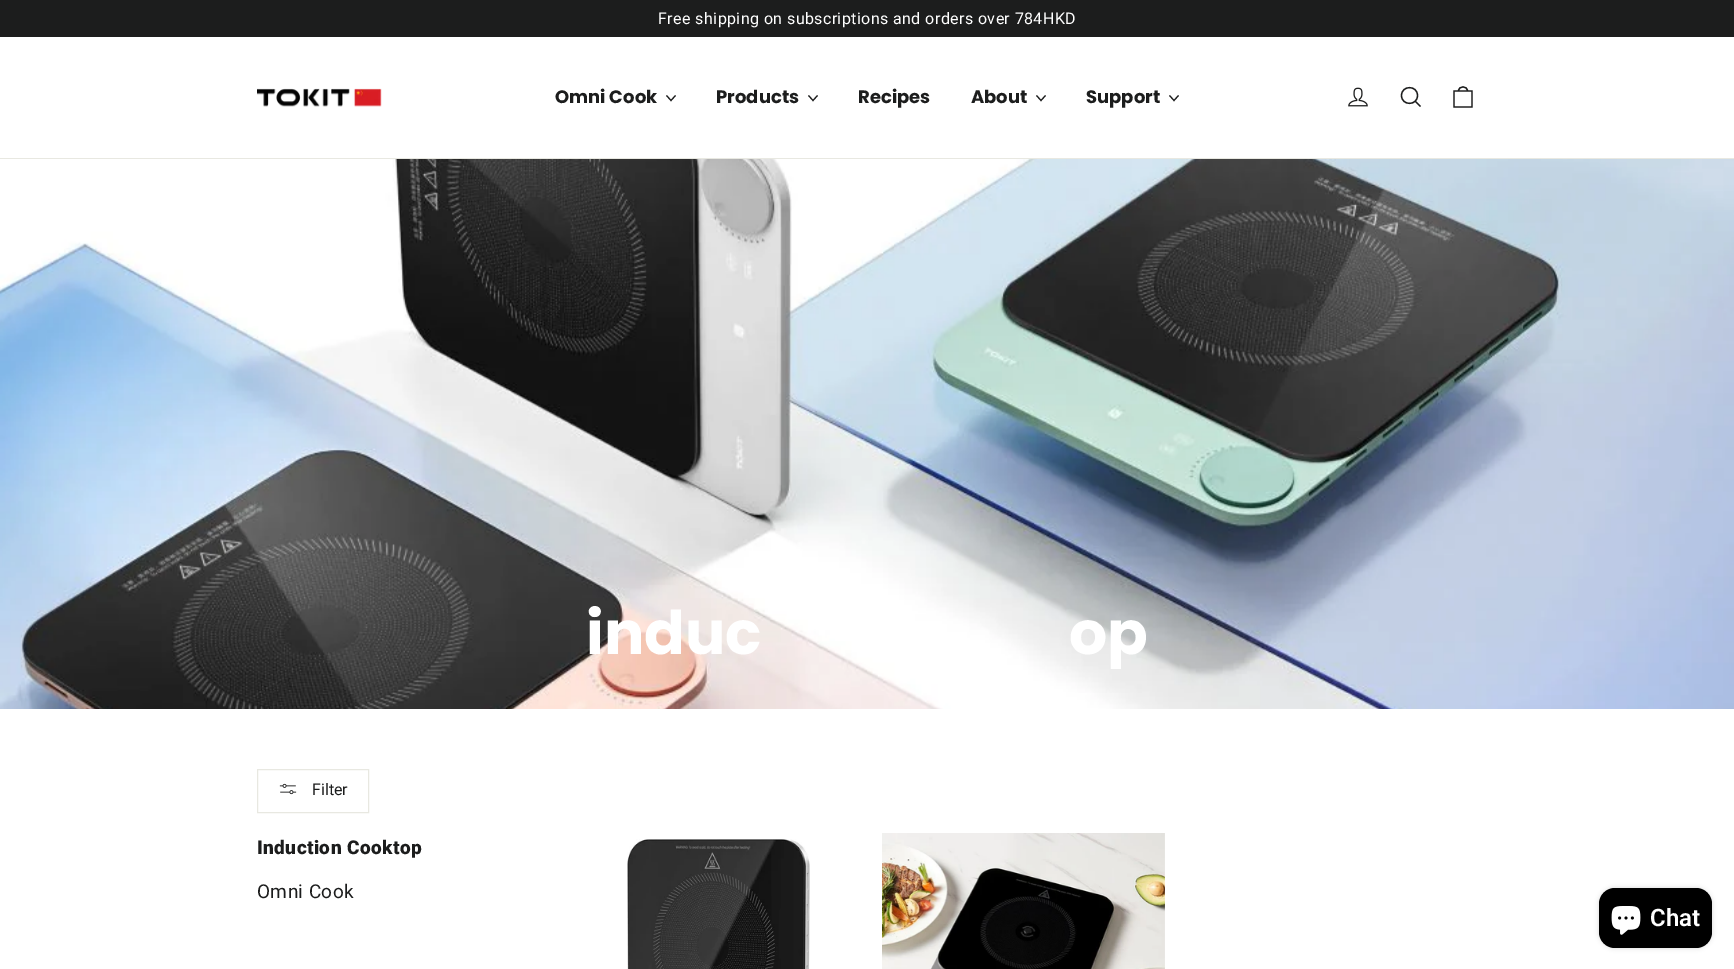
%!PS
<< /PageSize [1734 969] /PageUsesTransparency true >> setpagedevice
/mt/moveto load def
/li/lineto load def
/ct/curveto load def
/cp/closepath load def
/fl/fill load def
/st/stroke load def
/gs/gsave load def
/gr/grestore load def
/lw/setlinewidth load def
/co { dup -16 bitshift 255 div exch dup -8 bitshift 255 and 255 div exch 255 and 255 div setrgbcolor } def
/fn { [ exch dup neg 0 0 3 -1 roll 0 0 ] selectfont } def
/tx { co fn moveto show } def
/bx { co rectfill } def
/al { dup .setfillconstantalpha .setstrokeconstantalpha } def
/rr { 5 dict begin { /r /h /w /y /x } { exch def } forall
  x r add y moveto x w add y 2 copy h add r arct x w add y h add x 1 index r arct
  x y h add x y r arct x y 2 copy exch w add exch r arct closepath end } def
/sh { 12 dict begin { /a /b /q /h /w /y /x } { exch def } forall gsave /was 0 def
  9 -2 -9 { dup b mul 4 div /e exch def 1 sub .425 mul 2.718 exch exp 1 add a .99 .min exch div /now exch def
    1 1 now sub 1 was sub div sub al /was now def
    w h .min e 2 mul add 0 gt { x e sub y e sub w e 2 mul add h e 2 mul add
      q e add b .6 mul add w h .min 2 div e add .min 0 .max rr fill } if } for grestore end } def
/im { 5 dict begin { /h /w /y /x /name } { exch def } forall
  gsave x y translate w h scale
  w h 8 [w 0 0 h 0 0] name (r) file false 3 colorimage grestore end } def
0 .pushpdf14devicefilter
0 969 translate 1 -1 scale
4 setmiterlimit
0 0 1734 969 16#FFFFFF bx
0 0 1734 37 16#1C1D1D bx
0 158 1734 1 16#E8E8E1 bx
(media/1.raw) 257 88 125 19 im
16#1C1D1D co
1.1 lw
666.5 95.5 mt 671 100.5 li 675.5 95.5 li st
808.5 95.5 mt 813 100.5 li 817.5 95.5 li st
1036.5 95.5 mt 1041 100.5 li 1045.5 95.5 li st
1169.5 95.5 mt 1174 100.5 li 1178.5 95.5 li st
(media/2.raw) 1348 87 20 20 im
1.3 lw
1417.5 95.5 mt 1417.5 106 1401.5 106 1401.5 95.5 ct 1401.5 85 1417.5 85 1417.5 95.5 ct cp 1420.5 106.5 mt 1415.5 101.5 li st
1454 91 mt 1472 91 li 1472 107 li 1454 107 li cp 1458.5 91 mt 1458.5 85.5 1467.5 85.5 1467.5 91 ct st
(media/3.raw) 0 159 1734 550 im
16#E8E8E1 co
1 lw
257.5 769.5 111 43 rectstroke
(media/4.raw) 279 783 18 12 im
(media/5.raw) 627 839 183 130 im
(media/6.raw) 882 833 283 136 im
16#000000 co
1599 888 113 60 16 2.5 .15 sh
1599 888 113 60 16 rr fl
(media/7.raw) 1611 906 30 29 im
/Roboto-Regular 16 fn
16#FFFFFF co
658 24 mt .42 0 (Free shipping on subscriptions and orders over 784HKD) ashow
(Omni Cook) 555 103 /Poppins-Bold 18 16#1C1D1D tx
(Products) 716 103 /Poppins-Bold 18 16#1C1D1D tx
(Recipes) 858 103 /Poppins-Bold 18 16#1C1D1D tx
(About) 971 103 /Poppins-Bold 18 16#1C1D1D tx
(Support) 1086 103 /Poppins-Bold 18 16#1C1D1D tx
(induc) 586 654 /Poppins-Bold 60 16#FFFFFF tx
gs
586 597 562 72 rectclip
(op) 1069 654 /Poppins-Bold 60 16#FFFFFF tx
gr
(Filter) 312 795 /Roboto-Regular 16 16#1C1D1D tx
/Roboto-Black 19 fn
257 854 mt .42 0 (Induction Cooktop) ashow
/Roboto-Regular 19 fn
257 898 mt .42 0 (Omni Cook) ashow
(Chat) 1650 926 /Roboto-SemiBold 24 16#FFFFFF tx
.poppdf14devicefilter showpage
